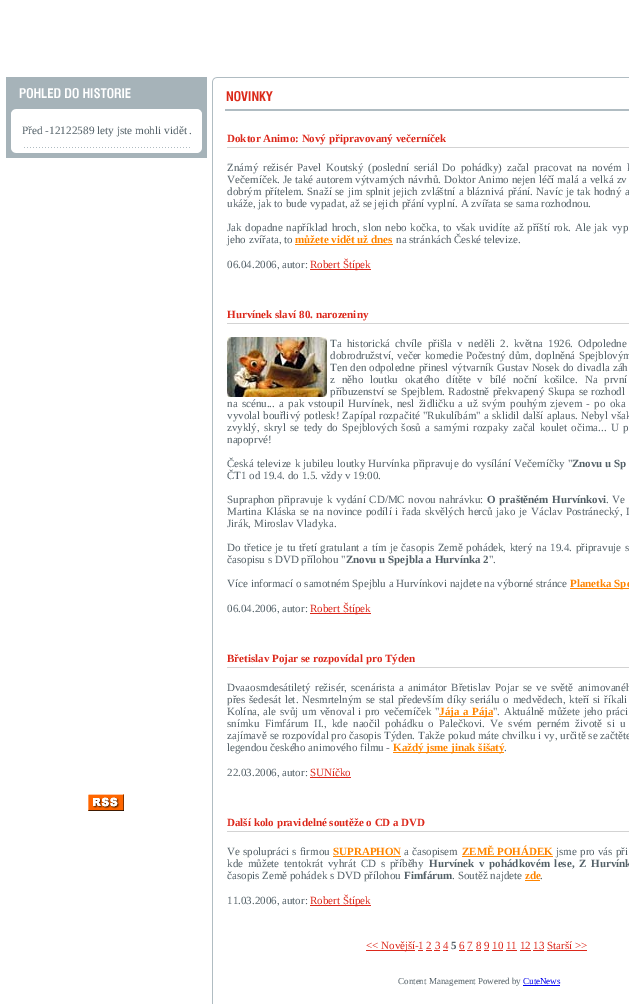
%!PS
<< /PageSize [629 1004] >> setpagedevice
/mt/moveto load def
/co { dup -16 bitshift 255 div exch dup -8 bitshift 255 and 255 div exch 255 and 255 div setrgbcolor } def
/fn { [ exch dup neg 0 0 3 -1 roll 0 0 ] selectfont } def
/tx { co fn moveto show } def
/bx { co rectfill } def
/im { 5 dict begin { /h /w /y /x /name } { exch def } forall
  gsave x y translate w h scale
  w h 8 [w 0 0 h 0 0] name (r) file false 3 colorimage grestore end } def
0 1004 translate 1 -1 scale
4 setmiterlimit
0 0 629 1004 16#FFFFFF bx
6 77 201 32 16#A6B3B9 bx
(media/1.raw) 19 88 112 11 im
(media/2.raw) 6 109 201 5 im
(media/3.raw) 6 114 201 34 im
(media/4.raw) 24 147 166 1 im
(media/5.raw) 6 148 201 10 im
(media/6.raw) 88 794 36 17 im
(media/7.raw) 212 77 417 6 im
212 83 1 921 16#B0BCC2 bx
(media/8.raw) 226 91 47 11 im
225 109 404 2 16#B0BCC2 bx
227 147 402 1 16#D3D3D3 bx
295 244 98 1 16#FF8500 bx
310 269 61 1 16#DC281B bx
227 323 402 1 16#D3D3D3 bx
(media/9.raw) 227 337 100 60 im
570 588 59 1 16#FF8500 bx
310 613 61 1 16#DC281B bx
227 667 402 1 16#D3D3D3 bx
439 716 54 1 16#FF8500 bx
393 752 111 1 16#FF8500 bx
310 777 41 1 16#DC281B bx
227 831 402 1 16#D3D3D3 bx
333 856 68 1 16#FF8500 bx
462 856 91 1 16#FF8500 bx
525 880 15 1 16#FF8500 bx
310 905 61 1 16#DC281B bx
366 950 49 1 16#DC281B bx
418 950 5 1 16#DC281B bx
459 950 6 1 16#DC281B bx
426 950 6 1 16#DC281B bx
434 950 6 1 16#DC281B bx
443 950 5 1 16#DC281B bx
467 950 6 1 16#DC281B bx
476 950 5 1 16#DC281B bx
484 950 5 1 16#DC281B bx
492 950 11 1 16#DC281B bx
506 950 11 1 16#DC281B bx
520 950 11 1 16#DC281B bx
533 950 11 1 16#DC281B bx
547 950 40 1 16#DC281B bx
523 985 37 1 16#0000EE bx
(Před -12122589 lety jste mohli vidět .) 22 134 /LiberationSerif-Regular 11.25 16#546168 tx
(Doktor Animo: Nový připravovaný večerníček) 227 142 /LiberationSerif-Bold 11 16#DC281B tx
/LiberationSerif-Regular 11 fn
16#546168 co
227 171 mt 2 0 32 (Známý režisér Pavel Koutský \(poslední seriál Do pohádky\) začal pracovat na novém k) widthshow
227 183 mt .25 0 32 (Večerníček. Je také autorem výtvarných návrhů. Doktor Animo nejen léčí malá a velká zv) widthshow
227 195 mt .6 0 32 (dobrým přítelem. Snaží se jim splnit jejich zvláštní a bláznivá přání. Navíc je tak hodný a) widthshow
(ukáže, jak to bude vypadat, až se jejich přání vyplní. A zvířata se sama rozhodnou.) 227 207 /LiberationSerif-Regular 11 16#546168 tx
227 231 mt 1 0 32 (Jak dopadne například hroch, slon nebo kočka, to však uvidíte až příští rok. Ale jak vyp) widthshow
(jeho zvířata, to) 227 243 /LiberationSerif-Regular 11 16#546168 tx
(můžete vidět už dnes) 295 243 /LiberationSerif-Bold 11 16#FF8500 tx
(na stránkách České televize.) 396 243 /LiberationSerif-Regular 11 16#546168 tx
(06.04.2006, autor:) 227 268 /LiberationSerif-Regular 11 16#546168 tx
(Robert Štípek) 310 268 /LiberationSerif-Regular 11 16#DC281B tx
(Hurvínek slaví 80. narozeniny) 227 318 /LiberationSerif-Bold 11 16#DC281B tx
/LiberationSerif-Regular 11 fn
16#546168 co
330 347 mt 2.5 0 32 (Ta historická chvíle přišla v neděli 2. května 1926. Odpoledne) widthshow
330 359 mt .75 0 32 (dobrodružství, večer komedie Počestný dům, doplněná Spejblovým) widthshow
330 371 mt .5 0 32 (Ten den odpoledne přinesl výtvarník Gustav Nosek do divadla záh) widthshow
330 383 mt 4 0 32 (z něho loutku okatého dítěte v bílé noční košilce. Na první) widthshow
330 395 mt .75 0 32 (příbuzenství se Spejblem. Radostně překvapený Skupa se rozhodl) widthshow
227 407 mt 1.5 0 32 (na scénu... a pak vstoupil Hurvínek, nesl židličku a už svým pouhým zjevem - po oka) widthshow
227 419 mt .5 0 32 (vyvolal bouřlivý potlesk! Zapípal rozpačité "Rukulíbám" a sklidil další aplaus. Nebyl však) widthshow
227 431 mt 1.5 0 32 (zvyklý, skryl se tedy do Spejblových šosů a samými rozpaky začal koulet očima... U p) widthshow
(napoprvé!) 227 443 /LiberationSerif-Regular 11 16#546168 tx
227 467 mt .5 0 32 (Česká televize k jubileu loutky Hurvínka připravuje do vysílání Večerníčky ") widthshow
(Znovu u Sp) 572 467 /LiberationSerif-Bold 11 16#546168 tx
(ČT1 od 19.4. do 1.5. vždy v 19:00.) 227 479 /LiberationSerif-Regular 11 16#546168 tx
227 503 mt .75 0 32 (Supraphon připravuje k vydání CD/MC novou nahrávku:) widthshow
/LiberationSerif-Bold 11 fn
487 503 mt .75 0 32 (O praštěném Hurvínkovi) widthshow
/LiberationSerif-Regular 11 fn
606 503 mt .75 0 32 (. Ve) widthshow
227 515 mt 1.1 0 32 (Martina Kláska se na novince podílí i řada skvělých herců jako je Václav Postránecký, L) widthshow
(Jirák, Miroslav Vladyka.) 227 527 /LiberationSerif-Regular 11 16#546168 tx
227 551 mt .9 0 32 (Do třetice je tu třetí gratulant a tím je časopis Země pohádek, který na 19.4. připravuje s) widthshow
(časopisu s DVD přílohou ") 227 563 /LiberationSerif-Regular 11 16#546168 tx
(Znovu u Spejbla a Hurvínka 2) 346 563 /LiberationSerif-Bold 11 16#546168 tx
(".) 489 563 /LiberationSerif-Regular 11 16#546168 tx
(Více informací o samotném Spejblu a Hurvínkovi najdete na výborné stránce) 227 587 /LiberationSerif-Regular 11 16#546168 tx
(Planetka Spe) 570 587 /LiberationSerif-Bold 11 16#FF8500 tx
(06.04.2006, autor:) 227 612 /LiberationSerif-Regular 11 16#546168 tx
(Robert Štípek) 310 612 /LiberationSerif-Regular 11 16#DC281B tx
(Břetislav Pojar se rozpovídal pro Týden) 227 662 /LiberationSerif-Bold 11 16#DC281B tx
/LiberationSerif-Regular 11 fn
16#546168 co
227 691 mt 1.5 0 32 (Dvaaosmdesátiletý režisér, scenárista a animátor Břetislav Pojar se ve světě animovanéh) widthshow
227 703 mt 1 0 32 (přes šedesát let. Nesmrtelným se stal především díky seriálu o medvědech, kteří si říkali) widthshow
227 715 mt 1 0 32 (Kolína, ale svůj um věnoval i pro večerníček ") widthshow
/LiberationSerif-Bold 11 fn
16#FF8500 co
439 715 mt 1 0 32 (Jája a Pája) widthshow
/LiberationSerif-Regular 11 fn
16#546168 co
493 715 mt 1 0 32 (". Aktuálně můžete jeho práci) widthshow
227 727 mt 2.5 0 32 (snímku Fimfárum II., kde naočil pohádku o Palečkovi. Ve svém perném životě si u) widthshow
227 739 mt .1 0 32 (zajímavě se rozpovídal pro časopis Týden. Takže pokud máte chvilku i vy, určitě se začtěte) widthshow
(legendou českého animového filmu -) 227 751 /LiberationSerif-Regular 11 16#546168 tx
(Každý jsme jinak šišatý) 393 751 /LiberationSerif-Bold 11 16#FF8500 tx
(.) 504 751 /LiberationSerif-Regular 11 16#546168 tx
(22.03.2006, autor:) 227 776 /LiberationSerif-Regular 11 16#546168 tx
(SUNíčko) 310 776 /LiberationSerif-Regular 11 16#DC281B tx
(Další kolo pravidelné soutěže o CD a DVD) 227 826 /LiberationSerif-Bold 11 16#DC281B tx
/LiberationSerif-Regular 11 fn
16#546168 co
227 855 mt .5 0 32 (Ve spolupráci s firmou) widthshow
(SUPRAPHON) 333 855 /LiberationSerif-Bold 11 16#FF8500 tx
/LiberationSerif-Regular 11 fn
16#546168 co
404 855 mt .5 0 32 (a časopisem) widthshow
(ZEMĚ POHÁDEK) 462 855 /LiberationSerif-Bold 11 16#FF8500 tx
/LiberationSerif-Regular 11 fn
16#546168 co
556 855 mt .5 0 32 (jsme pro vás při) widthshow
227 867 mt 2 0 32 (kde můžete tentokrát vyhrát CD s příběhy) widthshow
/LiberationSerif-Bold 11 fn
429 867 mt 2 0 32 (Hurvínek v pohádkovém lese, Z Hurvínk) widthshow
(časopis Země pohádek s DVD přílohou) 227 879 /LiberationSerif-Regular 11 16#546168 tx
(Fimfárum) 404 879 /LiberationSerif-Bold 11 16#546168 tx
(. Soutěž najdete) 452 879 /LiberationSerif-Regular 11 16#546168 tx
(zde) 525 879 /LiberationSerif-Bold 11 16#FF8500 tx
(.) 540 879 /LiberationSerif-Regular 11 16#546168 tx
(11.03.2006, autor:) 227 904 /LiberationSerif-Regular 11 16#546168 tx
(Robert Štípek) 310 904 /LiberationSerif-Regular 11 16#DC281B tx
(<< Novější-) 366 949 /LiberationSerif-Regular 11 16#DC281B tx
(1 2 3 4) 418 949 /LiberationSerif-Regular 11 16#DC281B tx
(5) 451 949 /LiberationSerif-Bold 11 16#546168 tx
(6 7 8 9 10 11 12 13 Starší >>) 459 949 /LiberationSerif-Regular 11 16#DC281B tx
(Content Management Powered by) 398 984 /LiberationSerif-Regular 9 16#546168 tx
(CuteNews) 523 984 /LiberationSerif-Regular 9 16#0000EE tx
showpage
